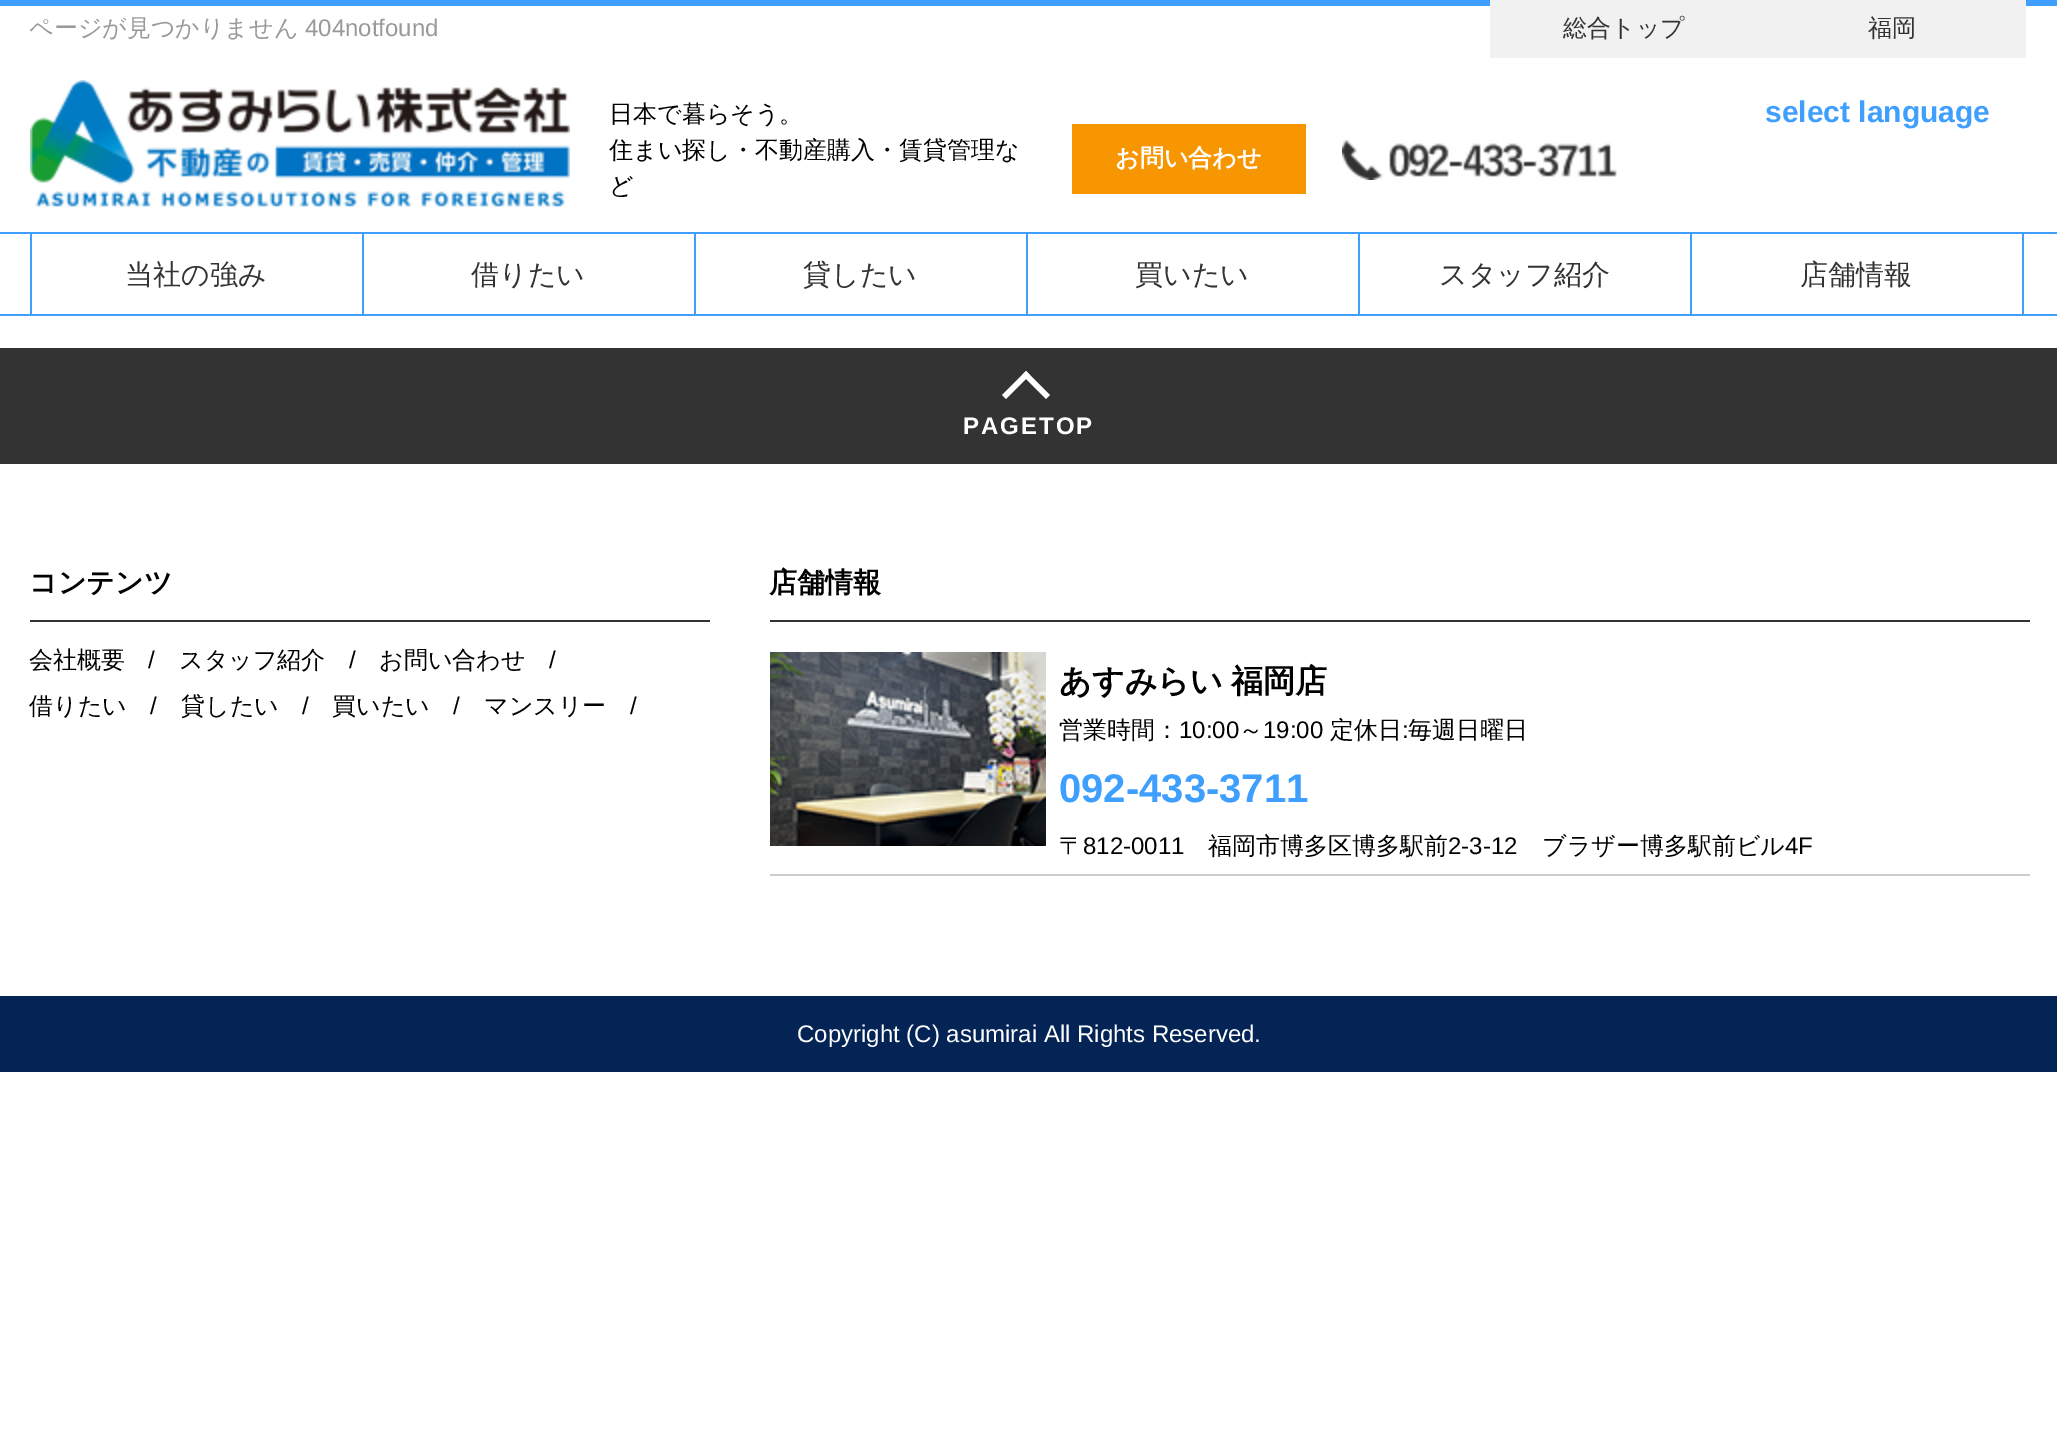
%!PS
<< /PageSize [2057 1429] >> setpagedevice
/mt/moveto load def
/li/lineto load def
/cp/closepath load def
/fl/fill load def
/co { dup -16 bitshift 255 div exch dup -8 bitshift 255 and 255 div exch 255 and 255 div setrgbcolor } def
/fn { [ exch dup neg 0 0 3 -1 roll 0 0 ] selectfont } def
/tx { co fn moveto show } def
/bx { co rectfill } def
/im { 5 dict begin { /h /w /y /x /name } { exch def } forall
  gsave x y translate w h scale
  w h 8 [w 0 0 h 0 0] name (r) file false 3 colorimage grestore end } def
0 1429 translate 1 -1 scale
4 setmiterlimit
0 0 2057 1429 16#FFFFFF bx
0 0 2057 6 16#3F9FFE bx
1490 0 536 58 16#F1F1F1 bx
(media/1.raw) 30 80 540 128 im
1072 124 234 70 16#F79600 bx
(media/2.raw) 1342 140 275 40 im
0 232 2057 2 16#3F9FFE bx
0 314 2057 2 16#3F9FFE bx
30 234 2 80 16#3F9FFE bx
362 234 2 80 16#3F9FFE bx
694 234 2 80 16#3F9FFE bx
1026 234 2 80 16#3F9FFE bx
1358 234 2 80 16#3F9FFE bx
2022 234 2 80 16#3F9FFE bx
1690 234 2 80 16#3F9FFE bx
0 348 2057 116 16#333333 bx
16#FFFFFF co
1002 395 mt 1026 371 li 1030 375 li 1006 399 li cp fl
1022 375 mt 1026 371 li 1050 395 li 1046 399 li cp fl
30 620 680 2 16#333333 bx
770 620 1260 2 16#333333 bx
770 874 1260 2 16#CCCCCC bx
(media/3.raw) 770 652 276 194 im
0 996 2057 76 16#042455 bx
(総合トップ) 1563 36 /WenQuanYiZenHei-Medium 24 16#333333 tx
(福岡) 1868 36 /WenQuanYiZenHei-Medium 24 16#333333 tx
(日本で暮らそう。) 609 122 /WenQuanYiZenHei-Medium 24 16#000000 tx
(住まい探し・不動産購入・賃貸管理な) 609 158 /WenQuanYiZenHei-Medium 24 16#000000 tx
(ど) 609 194 /WenQuanYiZenHei-Medium 24 16#000000 tx
(お問い合わせ) 1115 166 /WenQuanYiZenHei-Bold 24 16#FFFFFF tx
(select language) 1765 122 /LiberationSans-Bold 30 16#3F9FFE tx
(当社の強み) 125 284 /WenQuanYiZenHei-Medium 28 16#333333 tx
(借りたい) 471 284 /WenQuanYiZenHei-Medium 28 16#333333 tx
(貸したい) 803 284 /WenQuanYiZenHei-Medium 28 16#333333 tx
(買いたい) 1135 284 /WenQuanYiZenHei-Medium 28 16#333333 tx
(スタッフ紹介) 1439 284 /WenQuanYiZenHei-Medium 28 16#333333 tx
(店舗情報) 1800 284 /WenQuanYiZenHei-Medium 28 16#333333 tx
(ページが見つかりません) 29 36 /WenQuanYiZenHei-Medium 24 16#999999 tx
(404notfound) 305 36 /LiberationSans-Regular 24 16#999999 tx
/LiberationSans-Bold 24 fn
16#FFFFFF co
963 434 mt 2 0 (PAGETOP) ashow
(コンテンツ) 29 592 /WenQuanYiZenHei-Bold 28 16#000000 tx
(会社概要) 29 668 /WenQuanYiZenHei-Medium 24 16#000000 tx
(/) 148 668 /LiberationSans-Regular 24 16#000000 tx
(スタッフ紹介) 179 668 /WenQuanYiZenHei-Medium 24 16#000000 tx
(/) 349 668 /LiberationSans-Regular 24 16#000000 tx
(お問い合わせ) 379 668 /WenQuanYiZenHei-Medium 24 16#000000 tx
(/) 549 668 /LiberationSans-Regular 24 16#000000 tx
(借りたい) 29 714 /WenQuanYiZenHei-Medium 24 16#000000 tx
(/) 150 714 /LiberationSans-Regular 24 16#000000 tx
(貸したい) 181 714 /WenQuanYiZenHei-Medium 24 16#000000 tx
(/) 302 714 /LiberationSans-Regular 24 16#000000 tx
(買いたい) 332 714 /WenQuanYiZenHei-Medium 24 16#000000 tx
(/) 453 714 /LiberationSans-Regular 24 16#000000 tx
(マンスリー) 484 714 /WenQuanYiZenHei-Medium 24 16#000000 tx
(/) 630 714 /LiberationSans-Regular 24 16#000000 tx
(店舗情報) 769 592 /WenQuanYiZenHei-Bold 28 16#000000 tx
/WenQuanYiZenHei-Bold 32 fn
1059 692 mt -1 0 32 (あすみらい 福岡店) widthshow
(営業時間：) 1059 738 /WenQuanYiZenHei-Medium 24 16#000000 tx
(10:00) 1179 738 /LiberationSans-Regular 24 16#000000 tx
(～) 1239 738 /WenQuanYiZenHei-Medium 24 16#000000 tx
(19:00) 1263 738 /LiberationSans-Regular 24 16#000000 tx
(定休日) 1330 738 /WenQuanYiZenHei-Medium 24 16#000000 tx
(:) 1402 738 /LiberationSans-Regular 24 16#000000 tx
(毎週日曜日) 1408 738 /WenQuanYiZenHei-Medium 24 16#000000 tx
(092-433-3711) 1059 802 /LiberationSans-Bold 40 16#3F9FFE tx
(〒) 1059 854 /WenQuanYiZenHei-Medium 24 16#000000 tx
(812-0011) 1083 854 /LiberationSans-Regular 24 16#000000 tx
(福岡市博多区博多駅前) 1208 854 /WenQuanYiZenHei-Medium 24 16#000000 tx
(2-3-12) 1448 854 /LiberationSans-Regular 24 16#000000 tx
(ブラザー博多駅前ビル) 1542 854 /WenQuanYiZenHei-Medium 24 16#000000 tx
(4F) 1785 854 /LiberationSans-Regular 24 16#000000 tx
(Copyright \(C\) asumirai All Rights Reserved.) 797 1042 /LiberationSans-Regular 24 16#FFFFFF tx
showpage
